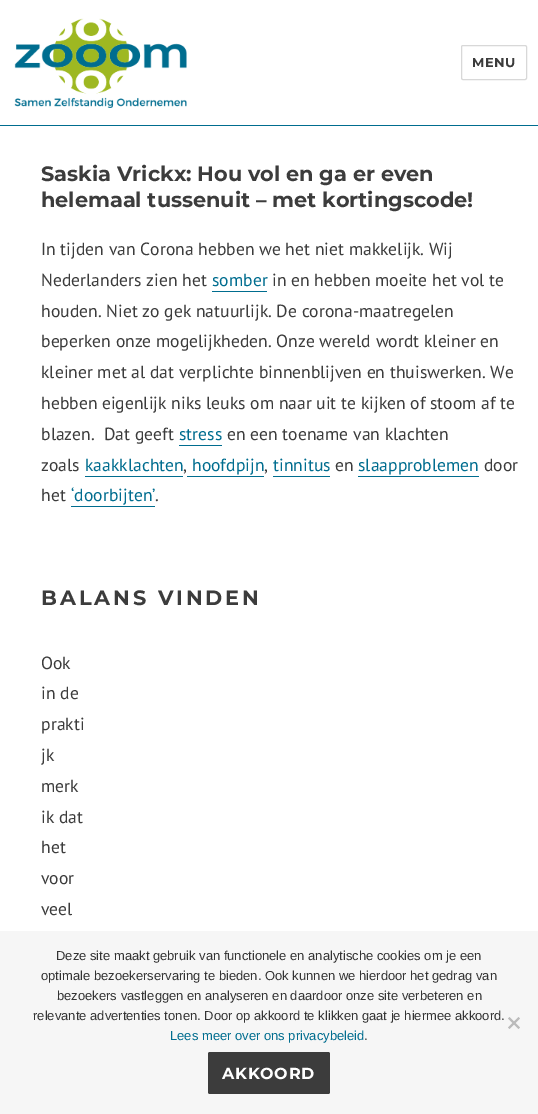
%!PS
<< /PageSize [538 1114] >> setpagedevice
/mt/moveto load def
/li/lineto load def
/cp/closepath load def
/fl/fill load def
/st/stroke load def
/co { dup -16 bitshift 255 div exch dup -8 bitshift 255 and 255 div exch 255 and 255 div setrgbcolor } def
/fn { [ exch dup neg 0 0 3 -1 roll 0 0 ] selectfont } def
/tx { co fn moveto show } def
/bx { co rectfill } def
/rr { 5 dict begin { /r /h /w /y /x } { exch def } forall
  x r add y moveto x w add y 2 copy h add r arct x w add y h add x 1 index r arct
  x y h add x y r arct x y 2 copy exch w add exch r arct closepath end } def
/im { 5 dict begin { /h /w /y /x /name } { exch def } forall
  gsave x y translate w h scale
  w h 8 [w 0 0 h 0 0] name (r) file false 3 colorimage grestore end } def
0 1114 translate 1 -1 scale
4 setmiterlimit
0 0 538 1114 16#FFFFFF bx
0 125 538 1 16#006D8F bx
(media/1.raw) 14 18 173 90 im
16#D8D8D8 co
461.5 45.5 65 34 1.5 rr st
212 291 55 1 16#006D8F bx
179 445 43 1 16#006D8F bx
85 476 98 1 16#006D8F bx
187 476 77 1 16#006D8F bx
273 476 57 1 16#006D8F bx
358 476 121 1 16#006D8F bx
71 506 84 1 16#006D8F bx
0 931 538 183 16#F6F6F6 bx
16#BBBBBB co
518.5 1017 mt 520 1018.5 li 509.5 1029 li 508 1027.5 li cp fl
508 1018.5 mt 509.5 1017 li 520 1027.5 li 518.5 1029 li cp fl
16#3C3C3C co
208 1052 122 42 2 rr fl
/Montserrat-Thin 13 fn
472 67 mt .5 0 (MENU) ashow
(Saskia Vrickx: Hou vol en ga er even) 41 181 /Montserrat-Thin 20.8 16#3C3C3C tx
(helemaal tussenuit – met kortingscode!) 41 207 /Montserrat-Thin 20.8 16#3C3C3C tx
(In tijden van Corona hebben we het niet makkelijk. Wij) 41 255 /PTSans-Regular 17.6 16#3C3C3C tx
(Nederlanders zien het) 41 286 /PTSans-Regular 17.6 16#3C3C3C tx
(somber) 212 286 /PTSans-Regular 17.6 16#006D8F tx
(in en hebben moeite het vol te) 272 286 /PTSans-Regular 17.6 16#3C3C3C tx
(houden. Niet zo gek natuurlijk. De corona-maatregelen) 41 317 /PTSans-Regular 17.6 16#3C3C3C tx
(beperken onze mogelijkheden. Onze wereld wordt kleiner en) 41 347 /PTSans-Regular 17.6 16#3C3C3C tx
(kleiner met al dat verplichte binnenblijven en thuiswerken. We) 41 378 /PTSans-Regular 17.6 16#3C3C3C tx
(hebben eigenlijk niks leuks om naar uit te kijken of stoom af te) 41 409 /PTSans-Regular 17.6 16#3C3C3C tx
(blazen.  Dat geeft) 41 440 /PTSans-Regular 17.6 16#3C3C3C tx
(stress) 179 440 /PTSans-Regular 17.6 16#006D8F tx
(en een toename van klachten) 227 440 /PTSans-Regular 17.6 16#3C3C3C tx
(zoals) 41 471 /PTSans-Regular 17.6 16#3C3C3C tx
(kaakklachten) 85 471 /PTSans-Regular 17.6 16#006D8F tx
(,) 183 471 /PTSans-Regular 17.6 16#3C3C3C tx
(hoofdpijn) 192 471 /PTSans-Regular 17.6 16#006D8F tx
(,) 264 471 /PTSans-Regular 17.6 16#3C3C3C tx
(tinnitus) 273 471 /PTSans-Regular 17.6 16#006D8F tx
(en) 335 471 /PTSans-Regular 17.6 16#3C3C3C tx
(slaapproblemen) 358 471 /PTSans-Regular 17.6 16#006D8F tx
(door) 484 471 /PTSans-Regular 17.6 16#3C3C3C tx
(het) 41 501 /PTSans-Regular 17.6 16#3C3C3C tx
(‘doorbijten’) 71 501 /PTSans-Regular 17.6 16#006D8F tx
(.) 155 501 /PTSans-Regular 17.6 16#3C3C3C tx
/Montserrat-Thin 20.8 fn
41 605 mt 2.9 0 (BALANS VINDEN) ashow
(Ook) 41 669 /PTSans-Regular 17.6 16#3C3C3C tx
(in de) 41 699 /PTSans-Regular 17.6 16#3C3C3C tx
(prakti) 41 730 /PTSans-Regular 17.6 16#3C3C3C tx
(jk) 41 761 /PTSans-Regular 17.6 16#3C3C3C tx
(merk) 41 792 /PTSans-Regular 17.6 16#3C3C3C tx
(ik dat) 41 823 /PTSans-Regular 17.6 16#3C3C3C tx
(het) 41 853 /PTSans-Regular 17.6 16#3C3C3C tx
(voor) 41 884 /PTSans-Regular 17.6 16#3C3C3C tx
(veel) 41 915 /PTSans-Regular 17.6 16#3C3C3C tx
(Deze site maakt gebruik van functionele en analytische cookies om je een) 56 960 /LiberationSans-Regular 13 16#333333 tx
(optimale bezoekerservaring te bieden. Ook kunnen we hierdoor het gedrag van) 41 980 /LiberationSans-Regular 13 16#333333 tx
(bezoekers vastleggen en analyseren en daardoor onze site verbeteren en) 57 1000 /LiberationSans-Regular 13 16#333333 tx
(relevante advertenties tonen. Door op akkoord te klikken gaat je hiermee akkoord.) 33 1020 /LiberationSans-Regular 13 16#333333 tx
(Lees meer over ons privacybeleid) 170 1040 /LiberationSans-Regular 13 16#006D8F tx
(.) 364 1040 /LiberationSans-Regular 13 16#333333 tx
/Montserrat-Thin 16 fn
16#FFFFFF co
222 1079 mt .75 0 (AKKOORD) ashow
showpage
